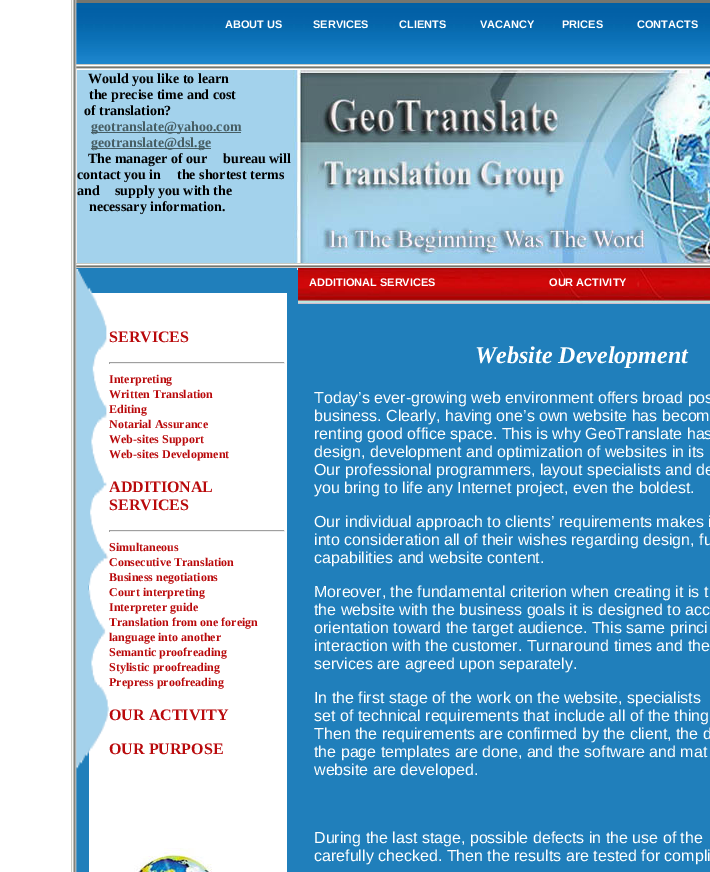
%!PS
<< /PageSize [710 872] >> setpagedevice
/co { dup -16 bitshift 255 div exch dup -8 bitshift 255 and 255 div exch 255 and 255 div setrgbcolor } def
/fn { [ exch dup neg 0 0 3 -1 roll 0 0 ] selectfont } def
/tx { co fn moveto show } def
/bx { co rectfill } def
/im { 5 dict begin { /h /w /y /x /name } { exch def } forall
  gsave x y translate w h scale
  w h 8 [w 0 0 h 0 0] name (r) file false 3 colorimage grestore end } def
0 872 translate 1 -1 scale
4 setmiterlimit
0 0 710 872 16#FFFFFF bx
75 0 635 3 16#75766F bx
(media/2.raw) 76 3 634 61 im
(media/3.raw) 76 64 634 5 im
(media/4.raw) 77 70 633 200 im
(media/3.raw) 76 263 634 5 im
76 268 221 604 16#207FBB bx
89 293 198 579 16#FFFFFF bx
(media/6.raw) 76 269 33 500 im
(media/1.raw) 71 0 6 872 im
91 132 150 1 16#475E64 bx
91 148 120 1 16#475E64 bx
297 270 413 602 16#207FBB bx
(media/5.raw) 298 268 412 36 im
109 362 176 1 16#9F9F9F bx
284 362 1 2 16#EEEEEE bx
109 363 176 1 16#EEEEEE bx
109 362 1 2 16#9F9F9F bx
109 530 176 1 16#9F9F9F bx
284 530 1 2 16#EEEEEE bx
109 531 176 1 16#EEEEEE bx
109 530 1 2 16#9F9F9F bx
(media/7.raw) 134 848 78 24 im
(ABOUT US) 225 28 /LiberationSans-Bold 11 16#FFFFFF tx
(SERVICES) 313 28 /LiberationSans-Bold 11 16#FFFFFF tx
(CLIENTS) 399 28 /LiberationSans-Bold 11 16#FFFFFF tx
(VACANCY) 480 28 /LiberationSans-Bold 11 16#FFFFFF tx
(PRICES) 562 28 /LiberationSans-Bold 11 16#FFFFFF tx
(CONTACTS) 637 28 /LiberationSans-Bold 11 16#FFFFFF tx
(Would you like to learn) 88 83 /LiberationSerif-Bold 14 16#000000 tx
(the precise time and cost) 89 99 /LiberationSerif-Bold 14 16#000000 tx
(of translation?) 84 115 /LiberationSerif-Bold 14 16#000000 tx
(geotranslate@yahoo.com) 91 131 /LiberationSerif-Bold 14 16#475E64 tx
(geotranslate@dsl.ge) 91 147 /LiberationSerif-Bold 14 16#475E64 tx
(The manager of our) 88 163 /LiberationSerif-Bold 14 16#000000 tx
(bureau will) 223 163 /LiberationSerif-Bold 14 16#000000 tx
(contact you in) 77 179 /LiberationSerif-Bold 14 16#000000 tx
(the shortest terms) 177 179 /LiberationSerif-Bold 14 16#000000 tx
(and) 77 195 /LiberationSerif-Bold 14 16#000000 tx
(supply you with the) 115 195 /LiberationSerif-Bold 14 16#000000 tx
(necessary information.) 89 211 /LiberationSerif-Bold 14 16#000000 tx
(ADDITIONAL SERVICES) 309 286 /LiberationSans-Bold 11 16#FFFFFF tx
(OUR ACTIVITY) 549 286 /LiberationSans-Bold 11 16#FFFFFF tx
(SERVICES) 109 342 /LiberationSerif-Bold 16 16#B9090B tx
(Interpreting) 109 383 /LiberationSerif-Bold 12 16#B9090B tx
(Written Translation) 109 398 /LiberationSerif-Bold 12 16#B9090B tx
(Editing) 109 413 /LiberationSerif-Bold 12 16#B9090B tx
(Notarial Assurance) 109 428 /LiberationSerif-Bold 12 16#B9090B tx
(Web-sites Support) 109 443 /LiberationSerif-Bold 12 16#B9090B tx
(Web-sites Development) 109 458 /LiberationSerif-Bold 12 16#B9090B tx
(ADDITIONAL) 109 492 /LiberationSerif-Bold 16 16#B9090B tx
(SERVICES) 109 510 /LiberationSerif-Bold 16 16#B9090B tx
(Simultaneous) 109 551 /LiberationSerif-Bold 12 16#B9090B tx
(Consecutive Translation) 109 566 /LiberationSerif-Bold 12 16#B9090B tx
(Business negotiations) 109 581 /LiberationSerif-Bold 12 16#B9090B tx
(Court interpreting) 109 596 /LiberationSerif-Bold 12 16#B9090B tx
(Interpreter guide) 109 611 /LiberationSerif-Bold 12 16#B9090B tx
(Translation from one foreign) 109 626 /LiberationSerif-Bold 12 16#B9090B tx
(language into another) 109 641 /LiberationSerif-Bold 12 16#B9090B tx
(Semantic proofreading) 109 656 /LiberationSerif-Bold 12 16#B9090B tx
(Stylistic proofreading) 109 671 /LiberationSerif-Bold 12 16#B9090B tx
(Prepress proofreading) 109 686 /LiberationSerif-Bold 12 16#B9090B tx
(OUR ACTIVITY) 109 720 /LiberationSerif-Bold 16 16#B9090B tx
(OUR PURPOSE) 109 754 /LiberationSerif-Bold 16 16#B9090B tx
(Website Development) 475 363 /LiberationSerif-BoldItalic 24 16#FFFFFF tx
(Today’s ever-growing web environment offers broad pos) 314 403 /LiberationSans-Regular 16 16#FFFFFF tx
(business. Clearly, having one’s own website has becom) 314 421 /LiberationSans-Regular 16 16#FFFFFF tx
(renting good office space. This is why GeoTranslate has) 314 439 /LiberationSans-Regular 16 16#FFFFFF tx
(design, development and optimization of websites in its) 314 457 /LiberationSans-Regular 16 16#FFFFFF tx
(Our professional programmers, layout specialists and de) 314 475 /LiberationSans-Regular 16 16#FFFFFF tx
(you bring to life any Internet project, even the boldest.) 314 493 /LiberationSans-Regular 16 16#FFFFFF tx
(Our individual approach to clients’ requirements makes i) 314 527 /LiberationSans-Regular 16 16#FFFFFF tx
(into consideration all of their wishes regarding design, fu) 314 545 /LiberationSans-Regular 16 16#FFFFFF tx
(capabilities and website content.) 314 563 /LiberationSans-Regular 16 16#FFFFFF tx
(Moreover, the fundamental criterion when creating it is t) 314 597 /LiberationSans-Regular 16 16#FFFFFF tx
(the website with the business goals it is designed to acc) 314 615 /LiberationSans-Regular 16 16#FFFFFF tx
(orientation toward the target audience. This same princi) 314 633 /LiberationSans-Regular 16 16#FFFFFF tx
(interaction with the customer. Turnaround times and the) 314 651 /LiberationSans-Regular 16 16#FFFFFF tx
(services are agreed upon separately.) 314 669 /LiberationSans-Regular 16 16#FFFFFF tx
(In the first stage of the work on the website, specialists) 314 703 /LiberationSans-Regular 16 16#FFFFFF tx
(set of technical requirements that include all of the thing) 314 721 /LiberationSans-Regular 16 16#FFFFFF tx
(Then the requirements are confirmed by the client, the d) 314 739 /LiberationSans-Regular 16 16#FFFFFF tx
(the page templates are done, and the software and mat) 314 757 /LiberationSans-Regular 16 16#FFFFFF tx
(website are developed.) 314 775 /LiberationSans-Regular 16 16#FFFFFF tx
(During the last stage, possible defects in the use of the) 314 843 /LiberationSans-Regular 16 16#FFFFFF tx
(carefully checked. Then the results are tested for compli) 314 861 /LiberationSans-Regular 16 16#FFFFFF tx
showpage
